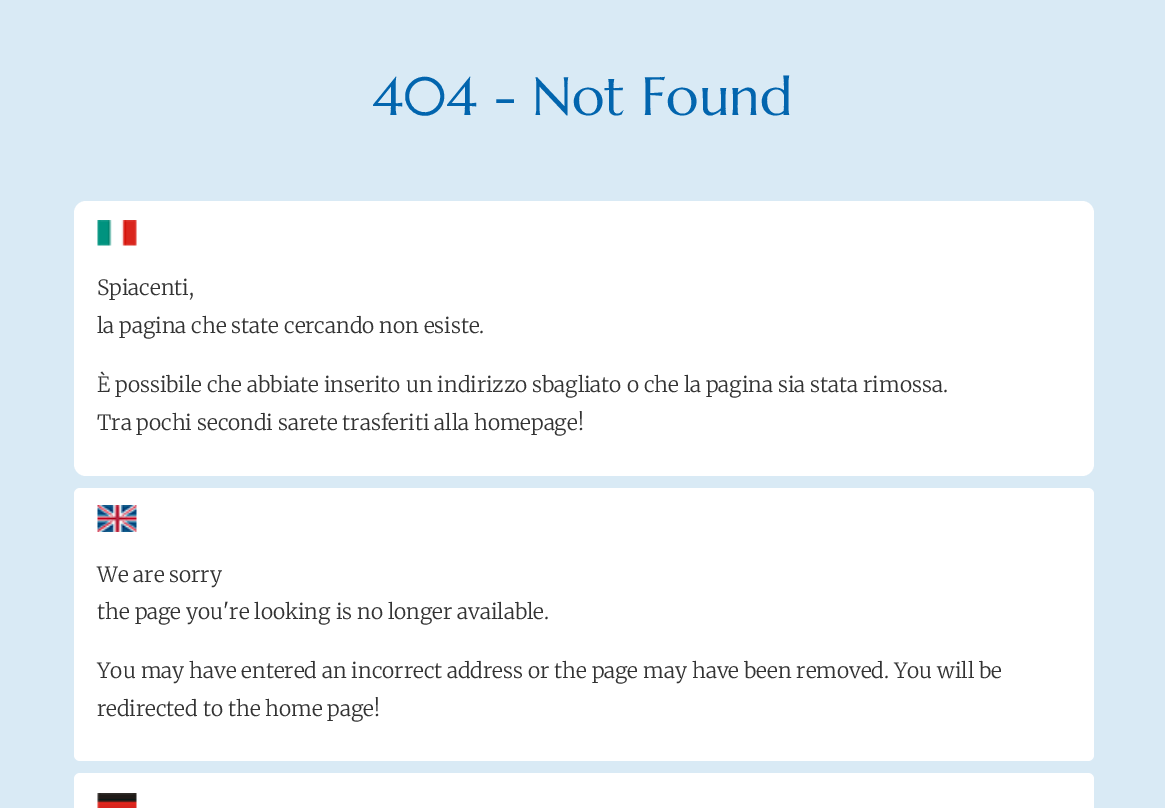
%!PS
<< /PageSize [1165 808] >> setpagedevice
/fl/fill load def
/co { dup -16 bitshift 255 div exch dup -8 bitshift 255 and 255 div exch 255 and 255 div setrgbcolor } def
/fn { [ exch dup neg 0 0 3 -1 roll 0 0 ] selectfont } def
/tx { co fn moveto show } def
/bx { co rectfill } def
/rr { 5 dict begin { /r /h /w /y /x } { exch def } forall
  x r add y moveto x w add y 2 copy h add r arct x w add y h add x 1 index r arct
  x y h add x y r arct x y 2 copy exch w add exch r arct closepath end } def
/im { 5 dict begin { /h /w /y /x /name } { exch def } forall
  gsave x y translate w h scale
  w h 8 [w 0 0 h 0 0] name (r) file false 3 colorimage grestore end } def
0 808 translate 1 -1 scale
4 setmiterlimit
0 0 1165 808 16#D9EAF5 bx
16#FFFFFF co
74 201 1020 275 12 rr fl
(media/1.raw) 97 220 40 26 im
74 488 1020 273 6 rr fl
(media/2.raw) 97 505 40 27 im
74 773 1020 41 6 rr fl
(media/3.raw) 97 793 40 15 im
(404 - Not Found) 372 115 /Marcellus-Regular 54 16#0265AE tx
(Spiacenti,) 97 295 /Merriweather-Light 21 16#333333 tx
(la pagina che state cercando non esiste.) 97 333 /Merriweather-Light 21 16#333333 tx
(È possibile che abbiate inserito un indirizzo sbagliato o che la pagina sia stata rimossa.) 97 392 /Merriweather-Light 21 16#333333 tx
(Tra pochi secondi sarete trasferiti alla homepage!) 97 430 /Merriweather-Light 21 16#333333 tx
(We are sorry) 97 582 /Merriweather-Light 21 16#333333 tx
(the page you're looking is no longer available.) 97 619 /Merriweather-Light 21 16#333333 tx
(You may have entered an incorrect address or the page may have been removed. You will be) 97 678 /Merriweather-Light 21 16#333333 tx
(redirected to the home page!) 97 716 /Merriweather-Light 21 16#333333 tx
showpage
